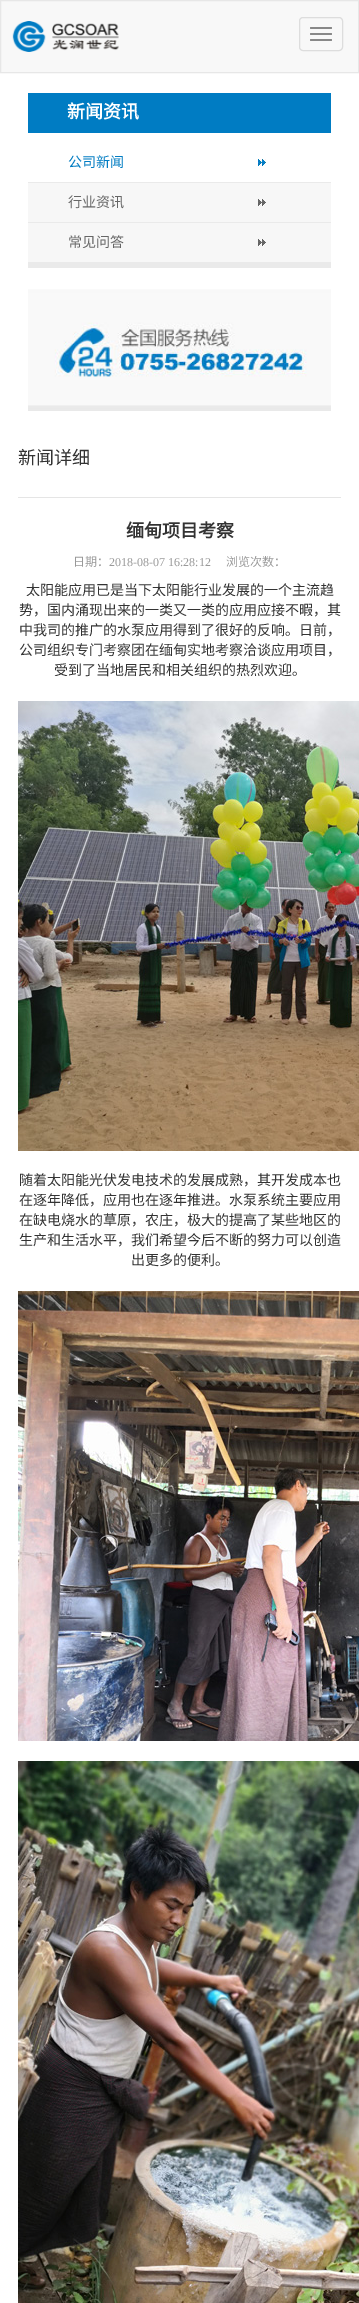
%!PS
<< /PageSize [359 2303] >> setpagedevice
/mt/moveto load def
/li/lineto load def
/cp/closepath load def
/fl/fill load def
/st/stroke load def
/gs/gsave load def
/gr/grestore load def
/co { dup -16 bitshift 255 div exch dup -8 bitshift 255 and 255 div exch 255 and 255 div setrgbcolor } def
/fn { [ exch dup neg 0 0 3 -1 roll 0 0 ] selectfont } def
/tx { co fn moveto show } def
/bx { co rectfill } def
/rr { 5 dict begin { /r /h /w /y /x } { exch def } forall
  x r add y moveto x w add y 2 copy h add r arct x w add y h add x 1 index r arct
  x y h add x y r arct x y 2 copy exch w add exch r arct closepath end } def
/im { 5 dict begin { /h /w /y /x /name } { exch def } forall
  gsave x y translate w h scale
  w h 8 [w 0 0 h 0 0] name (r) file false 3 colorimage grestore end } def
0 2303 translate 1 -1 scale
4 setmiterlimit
0 0 359 2303 16#FFFFFF bx
16#F8F8F8 co
.5 .5 mt 358.5 .5 li 358.5 72.5 li .5 72.5 li cp gs fl gr
16#E7E7E7 co
st
(media/1.raw) 12 21 107 31 im
16#DDDDDD co
299.5 17.5 43 33 3.5 rr st
16#888888 co
310 27 22 2 1 rr fl
310 33 22 2 1 rr fl
310 39 22 2 1 rr fl
28 93 303 40 16#007CC3 bx
28 262 303 6 16#EAEAEA bx
28 182 303 1 16#EAEAEA bx
(media/2.raw) 258 159 8 7 im
28 183 303 39 16#F7F7F7 bx
28 222 303 1 16#EAEAEA bx
(media/3.raw) 258 199 8 7 im
28 223 303 39 16#F7F7F7 bx
(media/3.raw) 258 239 8 7 im
(media/4.raw) 28 289 303 122 im
18 497 323 1 16#E5E5E5 bx
(media/5.raw) 18 701 341 450 im
(media/6.raw) 18 1291 341 450 im
(media/7.raw) 18 1761 341 542 im
(新闻资讯) 67 118 /NotoSansCJKSC-Bold 18 16#FFFFFF tx
(公司新闻) 68 167 /NotoSansCJKSC-Regular 14 16#007CC3 tx
(行业资讯) 68 207 /NotoSansCJKSC-Regular 14 16#666666 tx
(常见问答) 68 247 /NotoSansCJKSC-Regular 14 16#666666 tx
(新闻详细) 18 464 /NotoSansCJKSC-Regular 18 16#333333 tx
(缅甸项目考察) 126 537 /NotoSansCJKSC-Bold 18 16#333333 tx
(日期：) 73 566 /NotoSansCJKSC-Regular 12 16#999999 tx
(2018-08-07 16:28:12) 109 566 /LiberationSerif-Regular 12 16#999999 tx
(浏览次数：) 226 566 /NotoSansCJKSC-Regular 12 16#999999 tx
(太阳能应用已是当下太阳能行业发展的一个主流趋) 26 595 /NotoSansCJKSC-Regular 14 16#333333 tx
(势，国内涌现出来的一类又一类的应用应接不暇，其) 19 615 /NotoSansCJKSC-Regular 14 16#333333 tx
(中我司的推广的水泵应用得到了很好的反响。日前，) 19 635 /NotoSansCJKSC-Regular 14 16#333333 tx
(公司组织专门考察团在缅甸实地考察洽谈应用项目，) 19 655 /NotoSansCJKSC-Regular 14 16#333333 tx
(受到了当地居民和相关组织的热烈欢迎。) 54 675 /NotoSansCJKSC-Regular 14 16#333333 tx
(随着太阳能光伏发电技术的发展成熟，其开发成本也) 19 1185 /NotoSansCJKSC-Regular 14 16#333333 tx
(在逐年降低，应用也在逐年推进。水泵系统主要应用) 19 1205 /NotoSansCJKSC-Regular 14 16#333333 tx
(在缺电烧水的草原，农庄，极大的提高了某些地区的) 19 1225 /NotoSansCJKSC-Regular 14 16#333333 tx
(生产和生活水平，我们希望今后不断的努力可以创造) 19 1245 /NotoSansCJKSC-Regular 14 16#333333 tx
(出更多的便利。) 131 1265 /NotoSansCJKSC-Regular 14 16#333333 tx
showpage
